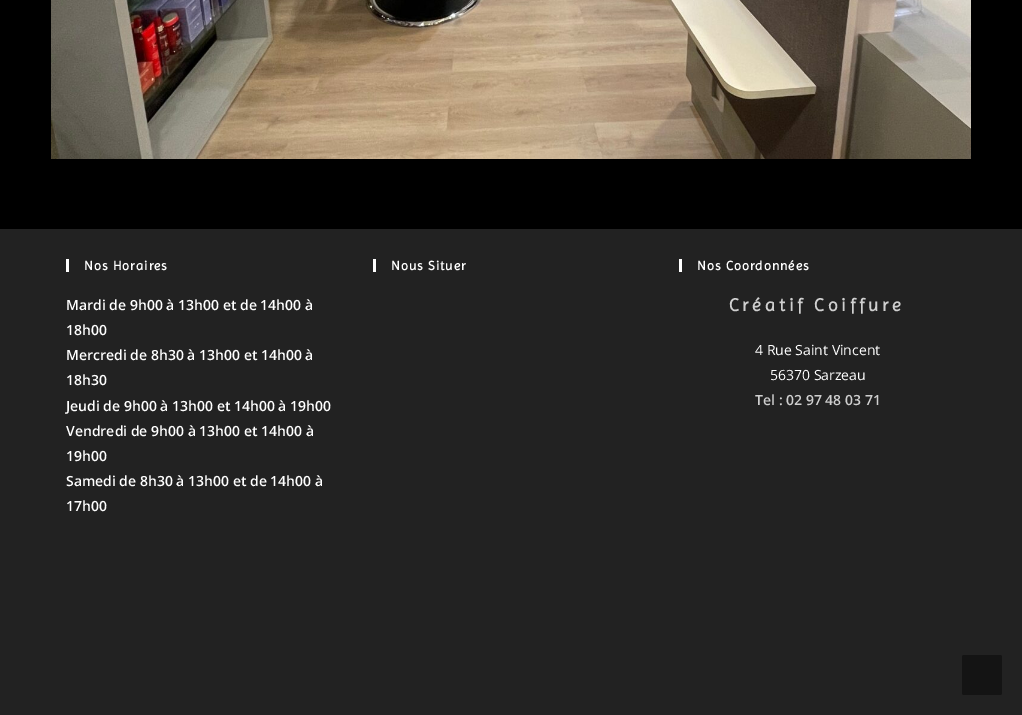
%!PS
<< /PageSize [1022 715] >> setpagedevice
/mt/moveto load def
/fl/fill load def
/co { dup -16 bitshift 255 div exch dup -8 bitshift 255 and 255 div exch 255 and 255 div setrgbcolor } def
/fn { [ exch dup neg 0 0 3 -1 roll 0 0 ] selectfont } def
/tx { co fn moveto show } def
/bx { co rectfill } def
/rr { 5 dict begin { /r /h /w /y /x } { exch def } forall
  x r add y moveto x w add y 2 copy h add r arct x w add y h add x 1 index r arct
  x y h add x y r arct x y 2 copy exch w add exch r arct closepath end } def
/im { 5 dict begin { /h /w /y /x /name } { exch def } forall
  gsave x y translate w h scale
  w h 8 [w 0 0 h 0 0] name (r) file false 3 colorimage grestore end } def
0 715 translate 1 -1 scale
4 setmiterlimit
0 0 1022 715 16#000000 bx
(media/1.raw) 51 0 920 159 im
0 229 1022 486 16#222222 bx
66 259 3 13 16#FFFFFF bx
373 259 3 13 16#FFFFFF bx
679 259 3 13 16#FFFFFF bx
16#141414 co
962 655 40 40 2 rr fl
/Imprima-Bold 13 fn
16#FFFFFF co
84 270 mt 1 0 (Nos Horaires) ashow
(Mardi de 9h00 à 13h00 et de 14h00 à) 66 310 /OpenSans-SemiBold 14 16#FFFFFF tx
(18h00) 66 335 /OpenSans-SemiBold 14 16#FFFFFF tx
(Mercredi de 8h30 à 13h00 et 14h00 à) 66 360 /OpenSans-SemiBold 14 16#FFFFFF tx
(18h30) 66 385 /OpenSans-SemiBold 14 16#FFFFFF tx
(Jeudi de 9h00 à 13h00 et 14h00 à 19h00) 66 411 /OpenSans-SemiBold 14 16#FFFFFF tx
(Vendredi de 9h00 à 13h00 et 14h00 à) 66 436 /OpenSans-SemiBold 14 16#FFFFFF tx
(19h00) 66 461 /OpenSans-SemiBold 14 16#FFFFFF tx
(Samedi de 8h30 à 13h00 et de 14h00 à) 66 486 /OpenSans-SemiBold 14 16#FFFFFF tx
(17h00) 66 511 /OpenSans-SemiBold 14 16#FFFFFF tx
/Imprima-Bold 13 fn
391 270 mt 1 0 (Nous Situer) ashow
697 270 mt 1 0 (Nos Coordonnées) ashow
/Imprima-Bold 18 fn
16#CFCFCF co
729 311 mt 3.75 0 (Créatif Coiffure) ashow
(4 Rue Saint Vincent) 755 355 /OpenSans-Regular 14 16#FFFFFF tx
(56370 Sarzeau) 770 380 /OpenSans-Regular 14 16#FFFFFF tx
(Tel : 02 97 48 03 71) 755 405 /OpenSans-SemiBold 14 16#CFCFCF tx
showpage
